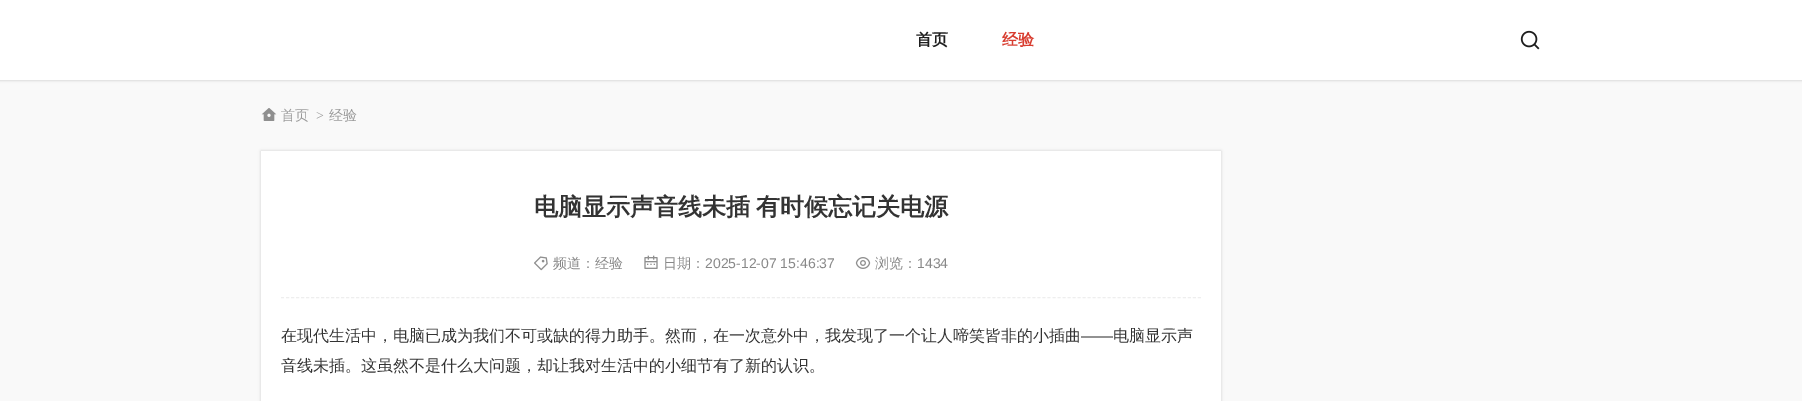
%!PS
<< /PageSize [1802 401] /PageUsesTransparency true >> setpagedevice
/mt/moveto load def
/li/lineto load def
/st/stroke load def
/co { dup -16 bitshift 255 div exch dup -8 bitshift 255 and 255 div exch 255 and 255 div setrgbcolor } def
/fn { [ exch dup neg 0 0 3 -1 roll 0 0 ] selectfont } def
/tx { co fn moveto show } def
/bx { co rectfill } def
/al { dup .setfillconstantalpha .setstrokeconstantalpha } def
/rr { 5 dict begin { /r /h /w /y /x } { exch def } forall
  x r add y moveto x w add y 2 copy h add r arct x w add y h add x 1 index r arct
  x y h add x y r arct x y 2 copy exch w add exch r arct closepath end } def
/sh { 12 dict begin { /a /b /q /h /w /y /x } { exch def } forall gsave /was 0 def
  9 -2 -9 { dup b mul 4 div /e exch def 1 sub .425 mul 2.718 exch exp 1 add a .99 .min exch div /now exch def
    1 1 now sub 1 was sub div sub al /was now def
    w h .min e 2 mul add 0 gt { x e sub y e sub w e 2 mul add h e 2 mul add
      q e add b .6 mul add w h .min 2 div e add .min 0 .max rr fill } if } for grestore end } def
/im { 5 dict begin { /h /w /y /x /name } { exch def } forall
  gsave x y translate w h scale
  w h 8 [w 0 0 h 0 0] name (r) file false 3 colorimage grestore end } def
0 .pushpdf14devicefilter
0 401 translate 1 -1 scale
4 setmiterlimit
0 0 1802 401 16#F9F9F9 bx
16#000000 co
0 0 1802 80 0 1.5 .2 sh
0 0 1802 80 16#FFFFFF bx
(media/1.raw) 1520 30 20 20 im
(media/2.raw) 261 108 16 13 im
16#000000 co
261 151 960 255 0 1.5 .15 sh
261 151 960 250 16#FFFFFF bx
16#EEEEEE co
[3 2.01] 0 setdash
281 297.5 mt 1201 297.5 li st
(media/3.raw) 534 256 14 15 im
(media/4.raw) 644 255 14 14 im
(media/5.raw) 855 257 16 12 im
(首页) 916 45 /WenQuanYiZenHei-Bold 16 16#1E1E1E tx
(经验) 1002 45 /WenQuanYiZenHei-Bold 16 16#D83D30 tx
(首页) 281 120 /WenQuanYiZenHei-Medium 14 16#999999 tx
(>) 316 120 /LiberationSerif-Regular 14 16#999999 tx
(经验) 329 120 /WenQuanYiZenHei-Medium 14 16#999999 tx
/WenQuanYiZenHei-Bold 24 fn
16#333333 co
534 215 mt -1 0 32 (电脑显示声音线未插 有时候忘记关电源) widthshow
(频道：经验) 553 268 /WenQuanYiZenHei-Medium 14 16#888888 tx
(日期：) 663 268 /WenQuanYiZenHei-Medium 14 16#888888 tx
(2025-12-07 15:46:37) 705 268 /LiberationSans-Regular 14 16#888888 tx
(浏览：) 875 268 /WenQuanYiZenHei-Medium 14 16#888888 tx
(1434) 917 268 /LiberationSans-Regular 14 16#888888 tx
(在现代生活中，电脑已成为我们不可或缺的得力助手。然而，在一次意外中，我发现了一个让人啼笑皆非的小插曲) 281 341 /WenQuanYiZenHei-Medium 16 16#333333 tx
(——) 1081 341 /LiberationSans-Regular 16 16#333333 tx
(电脑显示声) 1113 341 /WenQuanYiZenHei-Medium 16 16#333333 tx
(音线未插。这虽然不是什么大问题，却让我对生活中的小细节有了新的认识。) 281 371 /WenQuanYiZenHei-Medium 16 16#333333 tx
.poppdf14devicefilter showpage
